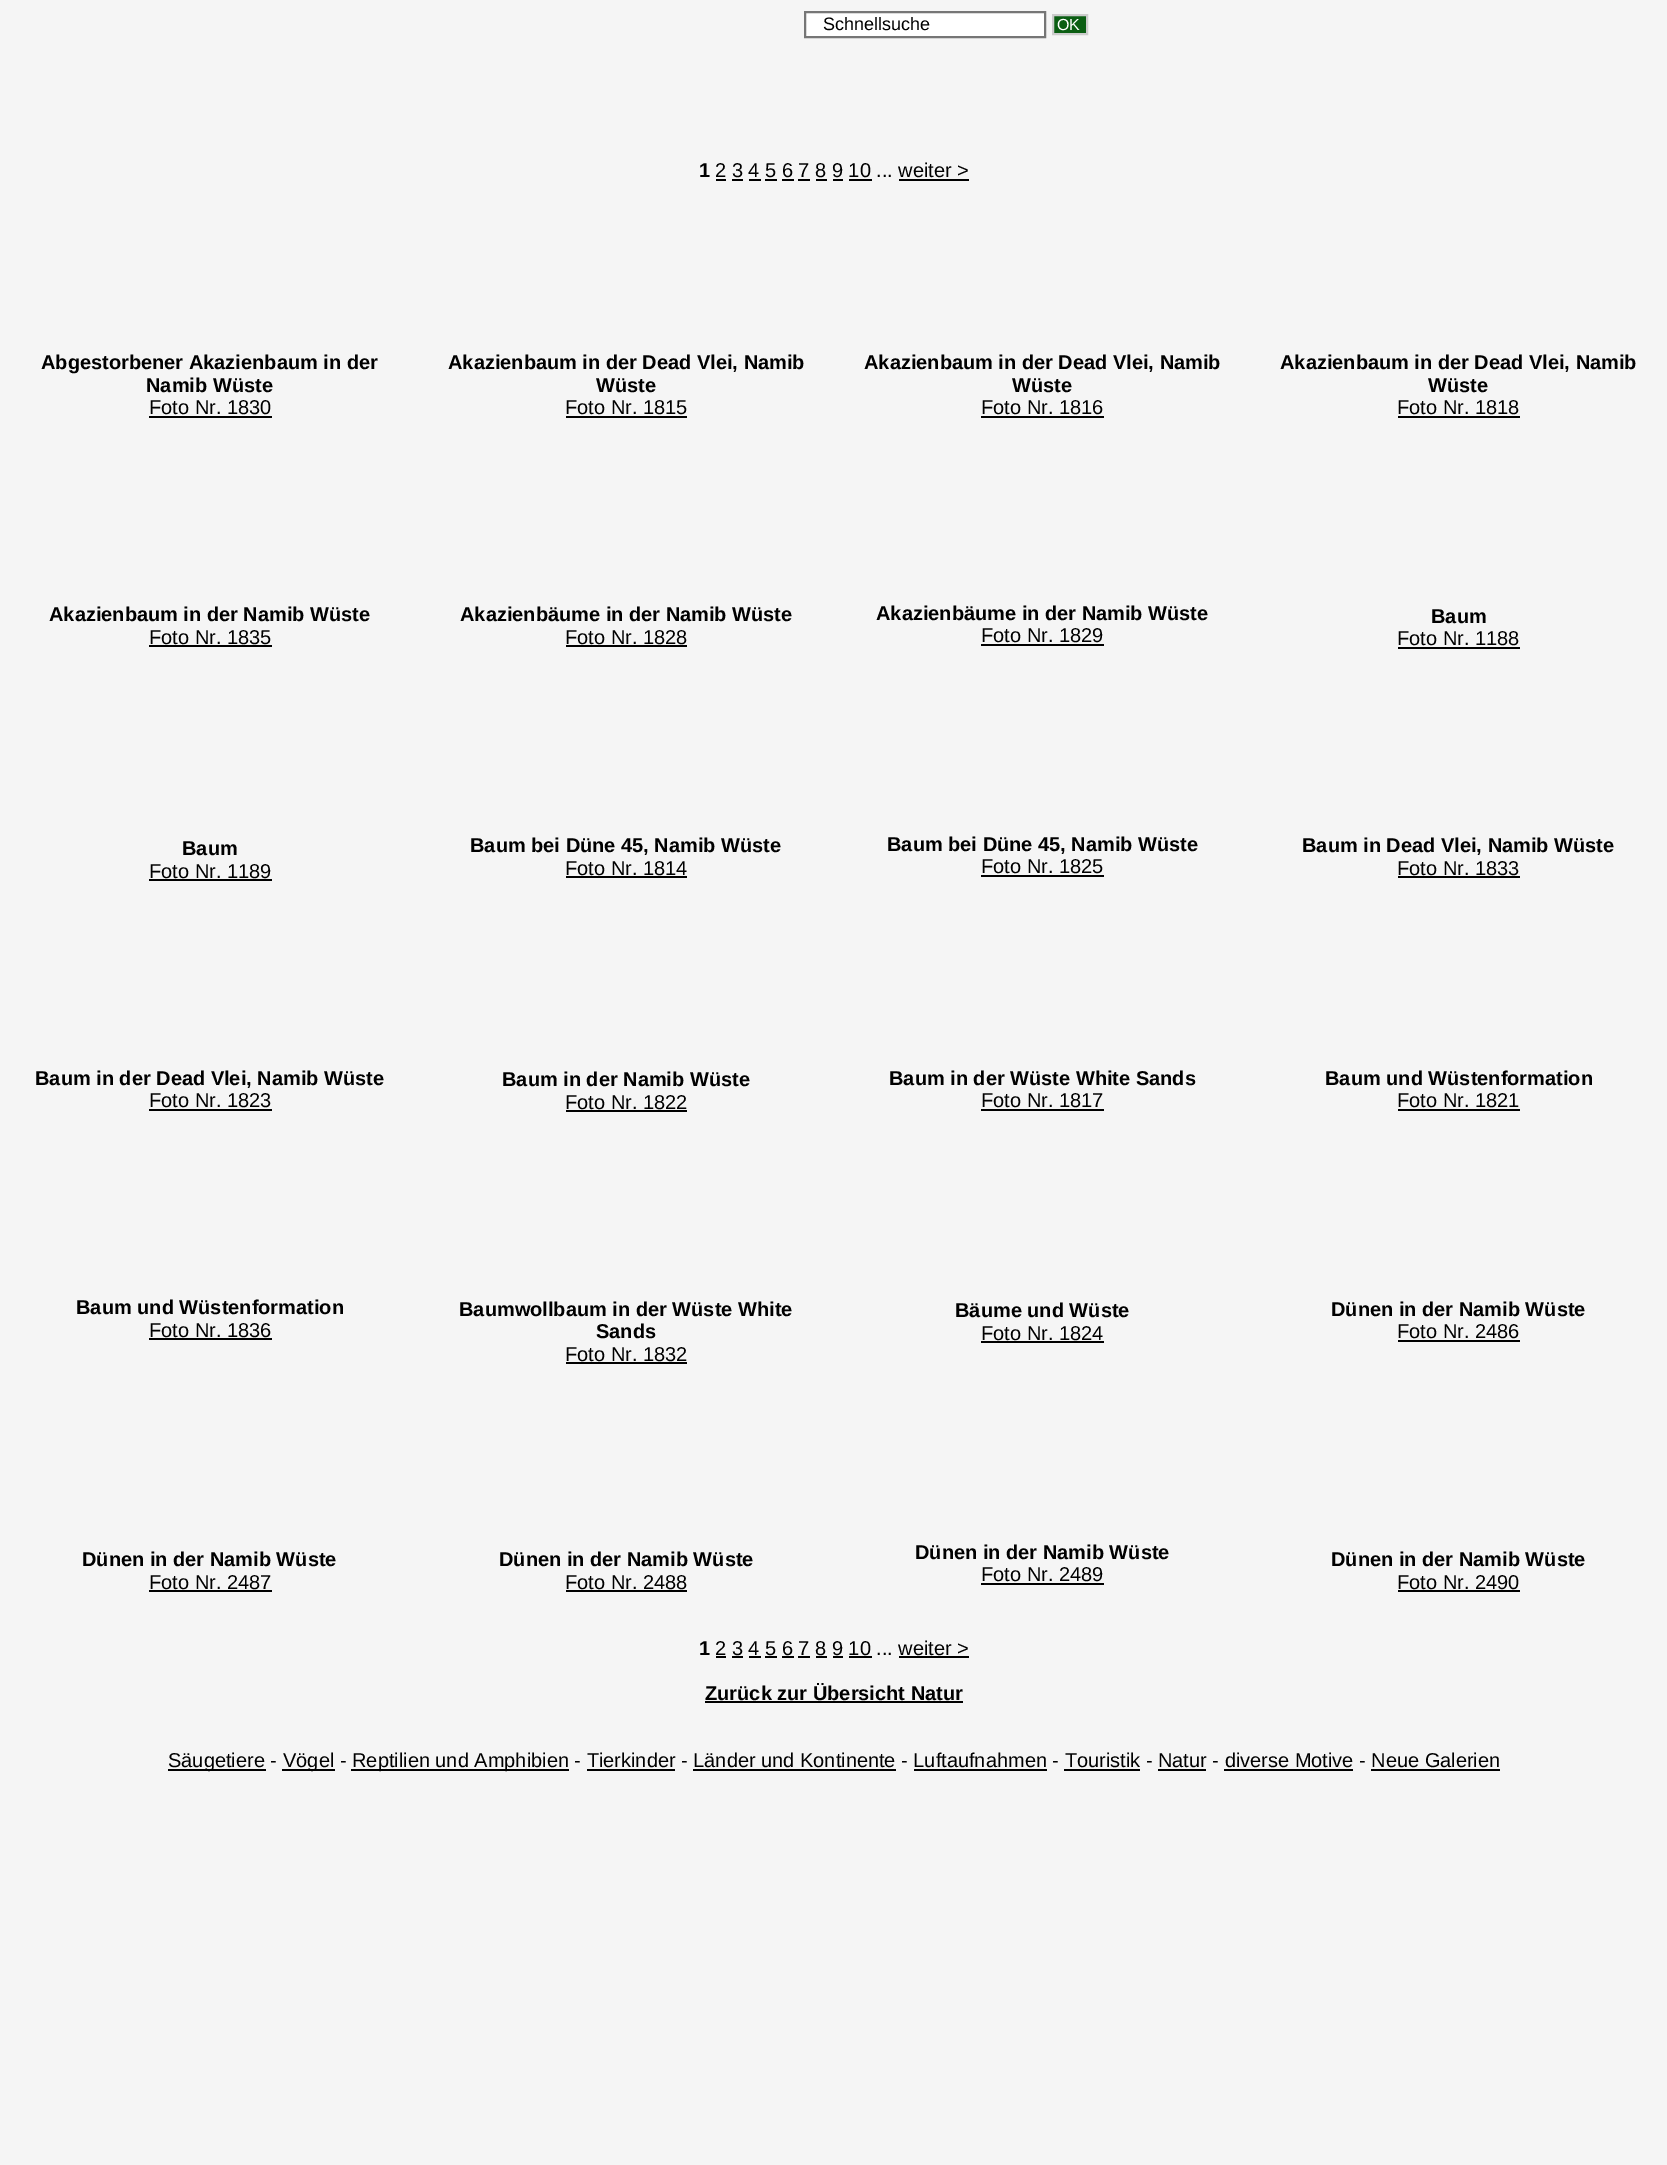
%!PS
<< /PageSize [1667 2165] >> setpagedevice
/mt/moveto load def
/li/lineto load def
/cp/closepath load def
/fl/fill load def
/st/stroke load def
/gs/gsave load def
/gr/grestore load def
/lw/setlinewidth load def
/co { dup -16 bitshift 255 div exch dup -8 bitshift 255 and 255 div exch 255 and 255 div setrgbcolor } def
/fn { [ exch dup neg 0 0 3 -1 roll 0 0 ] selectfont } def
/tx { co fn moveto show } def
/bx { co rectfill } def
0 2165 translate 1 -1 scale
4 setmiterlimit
0 0 1667 2165 16#F5F5F5 bx
16#FFFFFF co
805 12 mt 1045 12 li 1045 37 li 805 37 li cp gs fl gr
16#767676 co
2 lw
st
16#0B5E13 co
1053 15 mt 1087 15 li 1087 34 li 1053 34 li cp gs fl gr
16#CCCCCC co
st
716 179 10 2 16#000000 bx
732 179 11 2 16#000000 bx
749 179 12 2 16#000000 bx
765 179 12 2 16#000000 bx
782 179 12 2 16#000000 bx
798 179 12 2 16#000000 bx
816 179 11 2 16#000000 bx
833 179 10 2 16#000000 bx
849 179 23 2 16#000000 bx
899 179 70 2 16#000000 bx
149 416 123 2 16#000000 bx
566 416 121 2 16#000000 bx
981 416 123 2 16#000000 bx
1398 416 122 2 16#000000 bx
149 645 123 2 16#000000 bx
566 645 121 2 16#000000 bx
981 644 123 2 16#000000 bx
1398 647 122 2 16#000000 bx
149 879 123 2 16#000000 bx
566 876 121 2 16#000000 bx
981 875 123 2 16#000000 bx
1398 876 122 2 16#000000 bx
149 1109 123 2 16#000000 bx
566 1110 121 2 16#000000 bx
981 1109 123 2 16#000000 bx
1398 1109 122 2 16#000000 bx
149 1338 123 2 16#000000 bx
566 1362 121 2 16#000000 bx
981 1341 123 2 16#000000 bx
1398 1340 122 2 16#000000 bx
149 1590 123 2 16#000000 bx
566 1590 121 2 16#000000 bx
981 1583 123 2 16#000000 bx
1398 1590 122 2 16#000000 bx
716 1656 10 2 16#000000 bx
732 1656 11 2 16#000000 bx
749 1656 12 2 16#000000 bx
765 1656 12 2 16#000000 bx
782 1656 12 2 16#000000 bx
798 1656 12 2 16#000000 bx
816 1656 11 2 16#000000 bx
833 1656 10 2 16#000000 bx
849 1656 23 2 16#000000 bx
899 1656 70 2 16#000000 bx
705 1701 258 2 16#000000 bx
168 1769 98 2 16#000000 bx
282 1769 53 2 16#000000 bx
351 1769 218 2 16#000000 bx
587 1769 88 2 16#000000 bx
693 1769 203 2 16#000000 bx
914 1769 133 2 16#000000 bx
1064 1769 76 2 16#000000 bx
1158 1769 48 2 16#000000 bx
1224 1769 129 2 16#000000 bx
1371 1769 129 2 16#000000 bx
(Schnellsuche) 823 30 /LiberationSans-Regular 18 16#000000 tx
(OK) 1057 30 /LiberationSans-Regular 16 16#FFFFFF tx
(1) 699 177 /LiberationSans-Bold 20 16#000000 tx
(2 3 4 5 6 7 8 9 10 ... weiter >) 715 177 /LiberationSans-Regular 20 16#000000 tx
(Abgestorbener Akazienbaum in der) 41 369 /LiberationSans-Bold 20 16#000000 tx
(Namib Wüste) 146 392 /LiberationSans-Bold 20 16#000000 tx
(Foto Nr. 1830) 149 414 /LiberationSans-Regular 20 16#000000 tx
(Akazienbaum in der Dead Vlei, Namib) 448 369 /LiberationSans-Bold 20 16#000000 tx
(Wüste) 596 392 /LiberationSans-Bold 20 16#000000 tx
(Foto Nr. 1815) 565 414 /LiberationSans-Regular 20 16#000000 tx
(Akazienbaum in der Dead Vlei, Namib) 864 369 /LiberationSans-Bold 20 16#000000 tx
(Wüste) 1012 392 /LiberationSans-Bold 20 16#000000 tx
(Foto Nr. 1816) 981 414 /LiberationSans-Regular 20 16#000000 tx
(Akazienbaum in der Dead Vlei, Namib) 1280 369 /LiberationSans-Bold 20 16#000000 tx
(Wüste) 1428 392 /LiberationSans-Bold 20 16#000000 tx
(Foto Nr. 1818) 1397 414 /LiberationSans-Regular 20 16#000000 tx
(Akazienbaum in der Namib Wüste) 49 621 /LiberationSans-Bold 20 16#000000 tx
(Foto Nr. 1835) 149 644 /LiberationSans-Regular 20 16#000000 tx
(Akazienbäume in der Namib Wüste) 460 621 /LiberationSans-Bold 20 16#000000 tx
(Foto Nr. 1828) 565 644 /LiberationSans-Regular 20 16#000000 tx
(Akazienbäume in der Namib Wüste) 876 620 /LiberationSans-Bold 20 16#000000 tx
(Foto Nr. 1829) 981 642 /LiberationSans-Regular 20 16#000000 tx
(Baum) 1431 623 /LiberationSans-Bold 20 16#000000 tx
(Foto Nr. 1188) 1397 645 /LiberationSans-Regular 20 16#000000 tx
(Baum) 182 855 /LiberationSans-Bold 20 16#000000 tx
(Foto Nr. 1189) 149 878 /LiberationSans-Regular 20 16#000000 tx
(Baum bei Düne 45, Namib Wüste) 470 852 /LiberationSans-Bold 20 16#000000 tx
(Foto Nr. 1814) 565 875 /LiberationSans-Regular 20 16#000000 tx
(Baum bei Düne 45, Namib Wüste) 887 851 /LiberationSans-Bold 20 16#000000 tx
(Foto Nr. 1825) 981 873 /LiberationSans-Regular 20 16#000000 tx
(Baum in Dead Vlei, Namib Wüste) 1302 852 /LiberationSans-Bold 20 16#000000 tx
(Foto Nr. 1833) 1397 875 /LiberationSans-Regular 20 16#000000 tx
(Baum in der Dead Vlei, Namib Wüste) 35 1085 /LiberationSans-Bold 20 16#000000 tx
(Foto Nr. 1823) 149 1107 /LiberationSans-Regular 20 16#000000 tx
(Baum in der Namib Wüste) 502 1086 /LiberationSans-Bold 20 16#000000 tx
(Foto Nr. 1822) 565 1109 /LiberationSans-Regular 20 16#000000 tx
(Baum in der Wüste White Sands) 889 1085 /LiberationSans-Bold 20 16#000000 tx
(Foto Nr. 1817) 981 1107 /LiberationSans-Regular 20 16#000000 tx
(Baum und Wüstenformation) 1325 1085 /LiberationSans-Bold 20 16#000000 tx
(Foto Nr. 1821) 1397 1107 /LiberationSans-Regular 20 16#000000 tx
(Baum und Wüstenformation) 76 1314 /LiberationSans-Bold 20 16#000000 tx
(Foto Nr. 1836) 149 1337 /LiberationSans-Regular 20 16#000000 tx
(Baumwollbaum in der Wüste White) 459 1316 /LiberationSans-Bold 20 16#000000 tx
(Sands) 596 1338 /LiberationSans-Bold 20 16#000000 tx
(Foto Nr. 1832) 565 1361 /LiberationSans-Regular 20 16#000000 tx
(Bäume und Wüste) 955 1317 /LiberationSans-Bold 20 16#000000 tx
(Foto Nr. 1824) 981 1340 /LiberationSans-Regular 20 16#000000 tx
(Dünen in der Namib Wüste) 1331 1316 /LiberationSans-Bold 20 16#000000 tx
(Foto Nr. 2486) 1397 1338 /LiberationSans-Regular 20 16#000000 tx
(Dünen in der Namib Wüste) 82 1566 /LiberationSans-Bold 20 16#000000 tx
(Foto Nr. 2487) 149 1589 /LiberationSans-Regular 20 16#000000 tx
(Dünen in der Namib Wüste) 499 1566 /LiberationSans-Bold 20 16#000000 tx
(Foto Nr. 2488) 565 1589 /LiberationSans-Regular 20 16#000000 tx
(Dünen in der Namib Wüste) 915 1559 /LiberationSans-Bold 20 16#000000 tx
(Foto Nr. 2489) 981 1581 /LiberationSans-Regular 20 16#000000 tx
(Dünen in der Namib Wüste) 1331 1566 /LiberationSans-Bold 20 16#000000 tx
(Foto Nr. 2490) 1397 1589 /LiberationSans-Regular 20 16#000000 tx
(1) 699 1655 /LiberationSans-Bold 20 16#000000 tx
(2 3 4 5 6 7 8 9 10 ... weiter >) 715 1655 /LiberationSans-Regular 20 16#000000 tx
(Zurück zur Übersicht Natur) 705 1700 /LiberationSans-Bold 20 16#000000 tx
(Säugetiere -) 168 1767 /LiberationSans-Regular 20 16#000000 tx
(Vögel -) 283 1767 /LiberationSans-Regular 20 16#000000 tx
(Reptilien und Amphibien - Tierkinder - Länder und Kontinente - Luftaufnahmen - Touristik - Natur - diverse Motive - Neue Galerien) 352 1767 /LiberationSans-Regular 20 16#000000 tx
showpage
